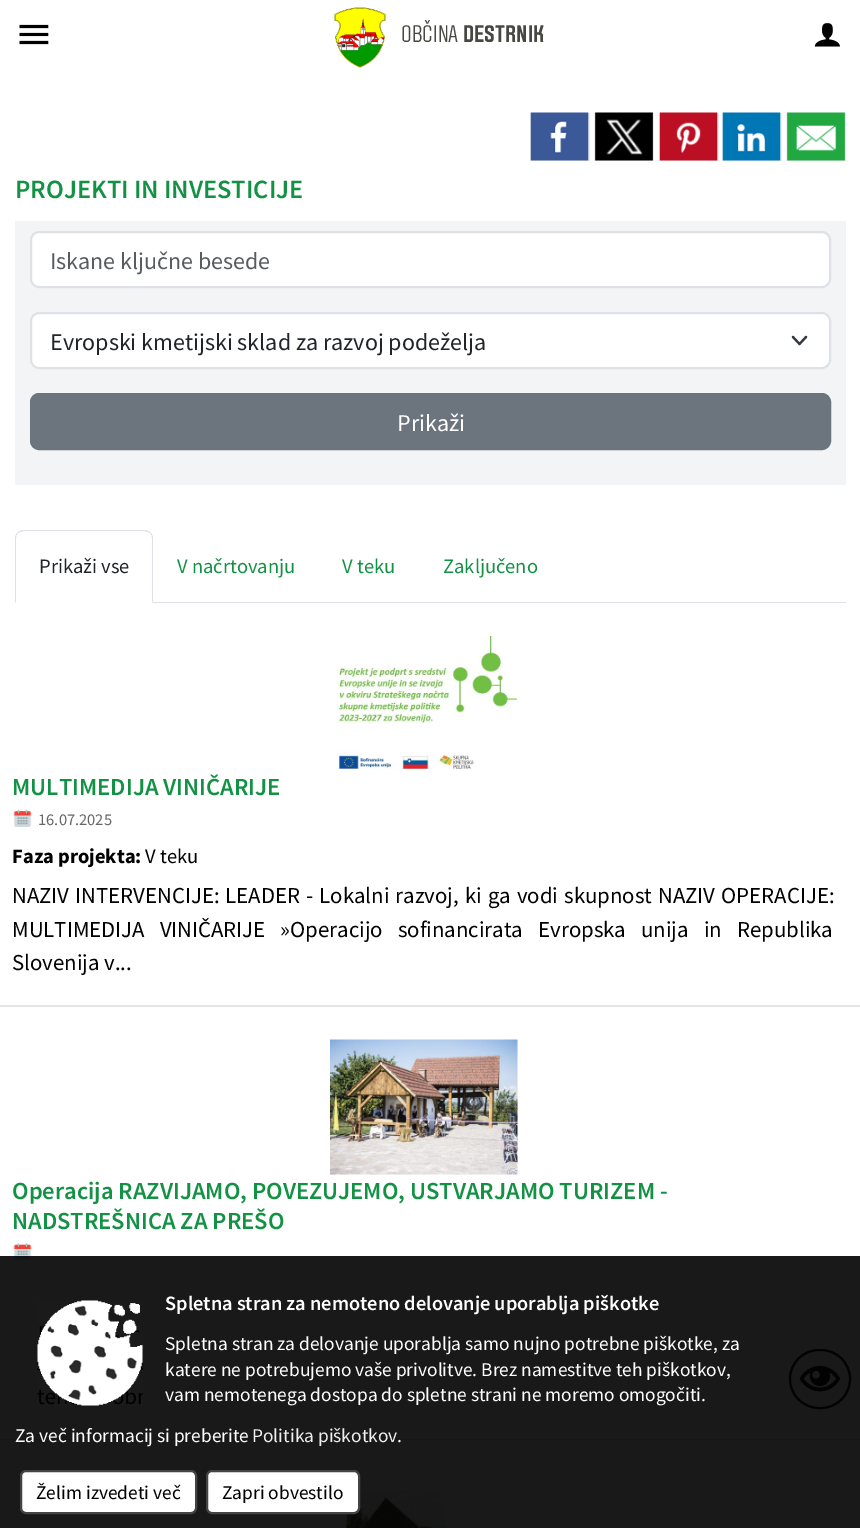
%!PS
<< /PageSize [860 1528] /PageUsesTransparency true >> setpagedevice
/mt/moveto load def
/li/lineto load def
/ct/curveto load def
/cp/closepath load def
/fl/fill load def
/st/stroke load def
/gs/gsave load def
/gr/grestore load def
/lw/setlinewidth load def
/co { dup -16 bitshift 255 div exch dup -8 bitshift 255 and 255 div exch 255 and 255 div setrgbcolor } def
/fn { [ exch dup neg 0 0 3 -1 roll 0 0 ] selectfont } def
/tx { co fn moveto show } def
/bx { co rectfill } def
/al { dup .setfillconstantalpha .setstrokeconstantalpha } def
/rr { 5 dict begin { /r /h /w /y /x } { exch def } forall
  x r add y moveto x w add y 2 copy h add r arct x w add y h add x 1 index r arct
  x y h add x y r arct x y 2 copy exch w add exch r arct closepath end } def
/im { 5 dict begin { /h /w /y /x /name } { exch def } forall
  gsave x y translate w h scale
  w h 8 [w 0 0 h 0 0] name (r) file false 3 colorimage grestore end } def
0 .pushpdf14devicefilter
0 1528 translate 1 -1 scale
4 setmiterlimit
0 0 860 1528 16#FFFFFF bx
(media/1.raw) 334 7 52 61 im
(media/2.raw) 19 24 30 21 im
(media/3.raw) 814 23 26 24 im
530 113 60 48 16#EFEFEF bx
(media/4.raw) 530 112 59 49 im
594 113 60 48 16#EFEFEF bx
(media/5.raw) 595 112 58 49 im
659 113 60 48 16#EFEFEF bx
(media/6.raw) 659 112 59 49 im
722 113 60 48 16#EFEFEF bx
(media/7.raw) 722 112 59 49 im
786 113 60 48 16#EFEFEF bx
(media/8.raw) 787 112 58 49 im
15 221 831 264 16#F3F4F5 bx
16#FFFFFF co
31 232 799 55 8 rr gs fl gr
16#DEE2E6 co
2 lw
st
16#FFFFFF co
30 312 801 57 9 rr fl
16#343A40 co
2.2 lw
1 setlinecap
1 setlinejoin
793 337 mt 799.5 344 li 806 337 li st
16#DEE2E6 co
2 lw
0 setlinecap
0 setlinejoin
31 313 799 55 8 rr st
16#6C757D co
31 394 799 55 8 rr gs fl gr
st
153 602 693 1 16#DEE2E6 bx
24 530 mt 22 530 19 531 18 532 ct 18 533 li 20 532 22 531 24 531 ct 144 531 li 146 531 148 532 150 533 ct 150 532 li 149 531 146 530 144 530 ct cp fl
150 532 mt 152 534 153 536 153 538 ct 153 603 li 152 602 li 152 538 li 152 536 151 534 150 533 ct cp fl
16#FFFFFF co
153 603 mt 152 602 li 16 602 li 15 603 li cp fl
16#DEE2E6 co
15 603 mt 16 602 li 16 538 li 16 536 17 534 18 533 ct 18 532 li 16 534 15 536 15 538 ct cp fl
0 1005 860 2 16#E4E4E4 bx
(media/9.raw) 337 636 181 134 im
(media/10.raw) 13 809 19 18 im
0 1439 860 1 16#E4E4E4 bx
(media/11.raw) 330 1039 188 136 im
(media/12.raw) 13 1243 19 18 im
(media/13.raw) 342 1491 105 37 im
16#111111 co
790 1350 60 58 29 rr st
(media/15.raw) 799 1365 42 27 im
0.9 al
0 1256 860 272 16#000000 bx
1 al
(media/14.raw) 37 1300 106 106 im
16#FFFFFF co
21 1471 175 42 5 rr gs fl gr
16#444444 co
st
16#FFFFFF co
207 1471 152 42 5 rr gs fl gr
16#444444 co
st
(OBČINA) 401 42 /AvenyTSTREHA-Light 24 16#474840 tx
(DESTRNIK) 463 42 /AvenyTSTREHA-SemiBold 24 16#474840 tx
(PROJEKTI IN INVESTICIJE) 15 198 /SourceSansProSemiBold-SemiBold 26.4 16#139144 tx
(Iskane ključne besede) 50 269 /SourceSansPro-Regular 24 16#595C5F tx
(Evropski kmetijski sklad za razvoj podeželja) 50 350 /SourceSansPro-Regular 24 16#212529 tx
(Prikaži) 397 431 /SourceSansPro-Regular 24 16#FFFFFF tx
(Prikaži vse) 39 573 /SourceSansPro-Regular 20.5 16#212529 tx
(V načrtovanju) 177 573 /SourceSansPro-Regular 20.5 16#139144 tx
(V teku) 342 573 /SourceSansPro-Regular 20.5 16#139144 tx
(Zaključeno) 443 573 /SourceSansPro-Regular 20.5 16#139144 tx
(MULTIMEDIJA VINIČARIJE) 12 795 /SourceSansProSemiBold-SemiBold 24.5 16#139144 tx
(16.07.2025) 38 825 /SourceSansPro-Regular 16.5 16#666666 tx
(Faza projekta:) 12 863 /SourceSansPro-Bold 20.5 16#000000 tx
(V teku) 145 863 /SourceSansPro-Regular 20.5 16#000000 tx
/SourceSansPro-Regular 22.8 fn
12 903 mt 1.5 0 32 (NAZIV INTERVENCIJE: LEADER - Lokalni razvoj, ki ga vodi skupnost NAZIV OPERACIJE:) widthshow
12 937 mt 10.5 0 32 (MULTIMEDIJA VINIČARIJE »Operacijo sofinancirata Evropska unija in Republika) widthshow
(Slovenija v...) 12 970 /SourceSansPro-Regular 22.8 16#000000 tx
(Operacija RAZVIJAMO, POVEZUJEMO, USTVARJAMO TURIZEM -) 12 1199 /SourceSansProSemiBold-SemiBold 24.5 16#139144 tx
(NADSTREŠNICA ZA PREŠO) 12 1229 /SourceSansProSemiBold-SemiBold 24.5 16#139144 tx
(Spletna stran za nemoteno delovanje uporablja piškotke) 165 1310 /SourceSansProSemiBold-SemiBold 20.35 16#FFFFFF tx
(Spletna stran za delovanje uporablja samo nujno potrebne piškotke, za) 165 1350 /SourceSansPro-Regular 19.4 16#FFFFFF tx
(katere ne potrebujemo vaše privolitve. Brez namestitve teh piškotkov,) 165 1376 /SourceSansPro-Regular 19.4 16#FFFFFF tx
(vam nemotenega dostopa do spletne strani ne moremo omogočiti.) 165 1401 /SourceSansPro-Regular 19.4 16#FFFFFF tx
(Za več informacij si preberite) 15 1442 /SourceSansPro-Regular 19.4 16#FFFFFF tx
(Politika piškotkov) 252 1442 /SourceSansPro-Regular 19.4 16#EEEEEE tx
(.) 397 1442 /SourceSansPro-Regular 19.4 16#FFFFFF tx
(Želim izvedeti več) 36 1499 /SourceSansPro-Regular 19.4 16#000000 tx
(Zapri obvestilo) 222 1499 /SourceSansPro-Regular 19.4 16#000000 tx
.poppdf14devicefilter showpage
